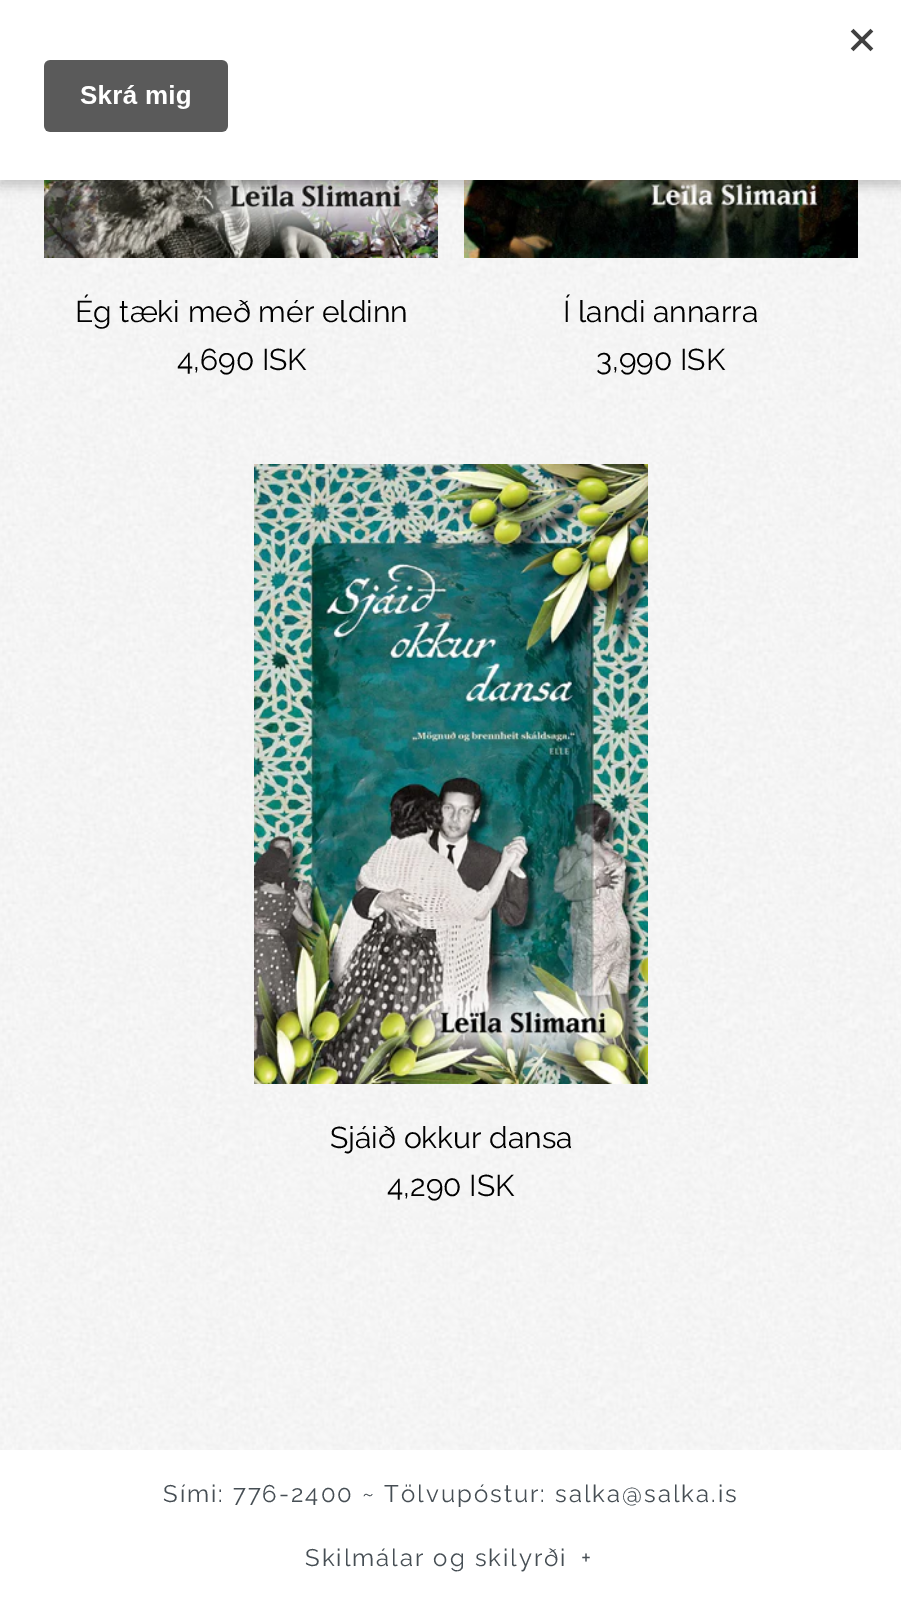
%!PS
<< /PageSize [901 1615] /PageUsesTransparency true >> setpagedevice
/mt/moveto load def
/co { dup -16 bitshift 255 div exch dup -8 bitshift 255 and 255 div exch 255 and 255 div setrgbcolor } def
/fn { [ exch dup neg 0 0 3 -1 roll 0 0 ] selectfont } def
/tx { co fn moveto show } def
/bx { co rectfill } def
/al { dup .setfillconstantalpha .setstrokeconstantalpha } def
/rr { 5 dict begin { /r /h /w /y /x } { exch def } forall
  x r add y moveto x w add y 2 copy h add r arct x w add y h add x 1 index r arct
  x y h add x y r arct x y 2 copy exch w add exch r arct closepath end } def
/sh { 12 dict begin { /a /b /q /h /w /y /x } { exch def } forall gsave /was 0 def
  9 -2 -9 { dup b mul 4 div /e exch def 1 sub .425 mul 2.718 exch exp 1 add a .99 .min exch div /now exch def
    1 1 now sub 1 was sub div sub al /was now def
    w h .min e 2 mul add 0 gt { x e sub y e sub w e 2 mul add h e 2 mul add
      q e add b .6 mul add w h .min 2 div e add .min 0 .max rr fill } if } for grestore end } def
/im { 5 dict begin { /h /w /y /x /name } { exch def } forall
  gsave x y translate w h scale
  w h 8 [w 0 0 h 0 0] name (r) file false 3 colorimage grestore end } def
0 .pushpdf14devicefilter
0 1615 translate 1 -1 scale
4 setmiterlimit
0 0 901 1615 16#FFFFFF bx
(media/2.raw) 0 180 901 1270 im
(media/3.raw) 44 180 394 78 im
(media/4.raw) 464 180 394 78 im
16#000000 co
0 6 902 180 0 6 .2 sh
0 0 901 180 16#FFFFFF bx
(media/1.raw) 44 28 830 104 im
(media/5.raw) 254 464 394 620 im
(Ég tæki með mér eldinn) 75 322 /Raleway-Regular 30 16#000000 tx
(4,690 ISK) 177 370 /Raleway-Regular 30 16#000000 tx
(Í landi annarra) 563 322 /Raleway-Regular 30 16#000000 tx
(3,990 ISK) 596 370 /Raleway-Regular 30 16#000000 tx
(Sjáið okkur dansa) 330 1148 /Raleway-Regular 30 16#000000 tx
(4,290 ISK) 387 1196 /Raleway-Regular 30 16#000000 tx
/Raleway-Regular 24 fn
16#464E54 co
163 1502 mt 2 0 (Sími: 776-2400 ~ Tölvupóstur: salka@salka.is) ashow
305 1566 mt 2 0 (Skilmálar og skilyrði) ashow
581 1566 mt 2 0 (+) ashow
.poppdf14devicefilter showpage
